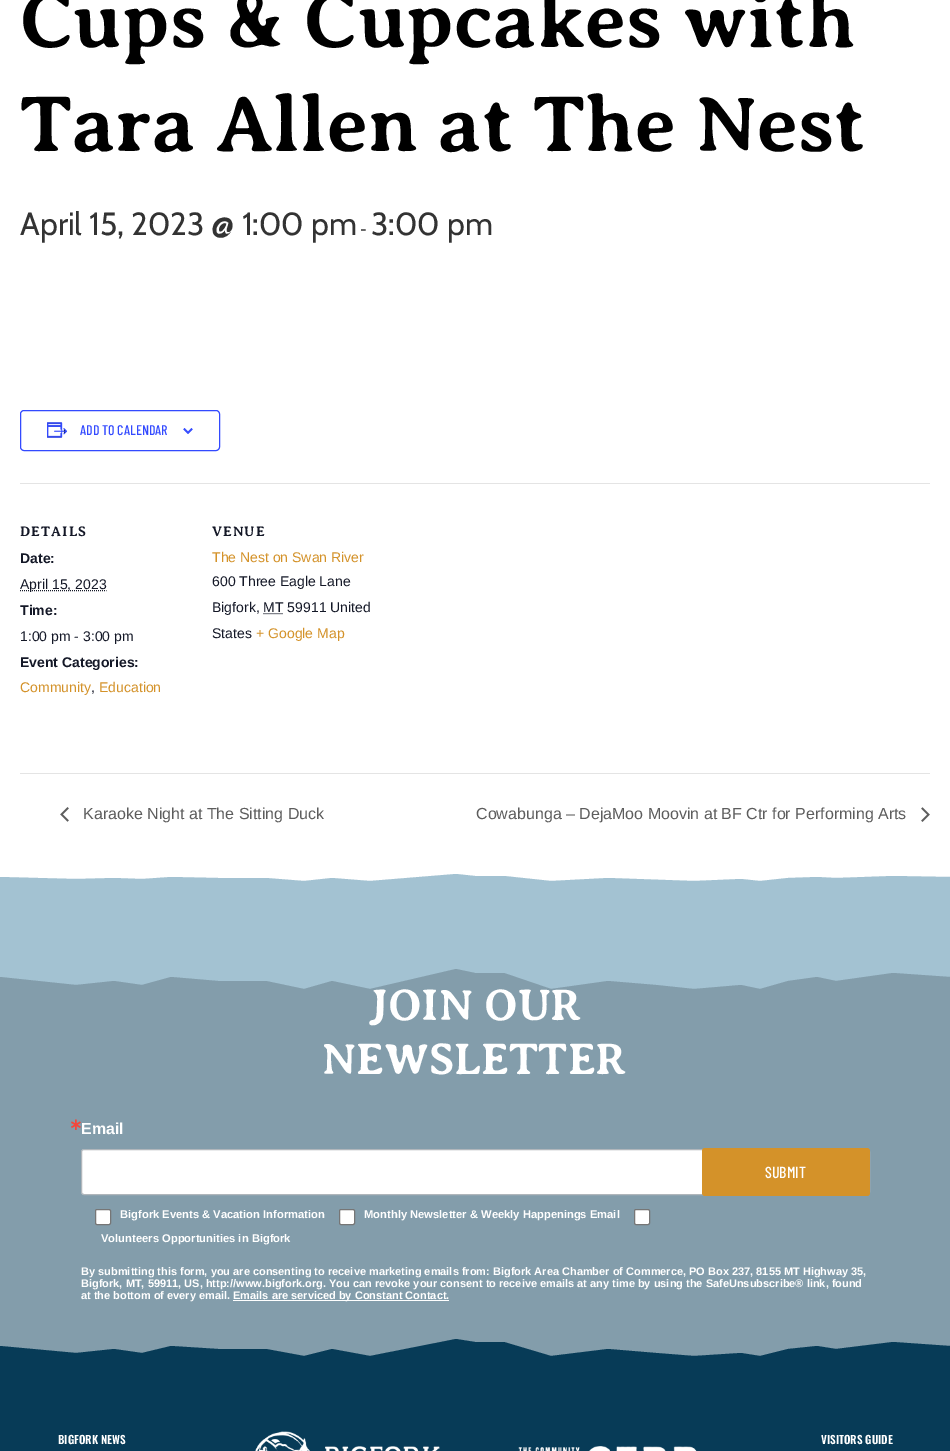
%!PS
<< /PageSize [950 1451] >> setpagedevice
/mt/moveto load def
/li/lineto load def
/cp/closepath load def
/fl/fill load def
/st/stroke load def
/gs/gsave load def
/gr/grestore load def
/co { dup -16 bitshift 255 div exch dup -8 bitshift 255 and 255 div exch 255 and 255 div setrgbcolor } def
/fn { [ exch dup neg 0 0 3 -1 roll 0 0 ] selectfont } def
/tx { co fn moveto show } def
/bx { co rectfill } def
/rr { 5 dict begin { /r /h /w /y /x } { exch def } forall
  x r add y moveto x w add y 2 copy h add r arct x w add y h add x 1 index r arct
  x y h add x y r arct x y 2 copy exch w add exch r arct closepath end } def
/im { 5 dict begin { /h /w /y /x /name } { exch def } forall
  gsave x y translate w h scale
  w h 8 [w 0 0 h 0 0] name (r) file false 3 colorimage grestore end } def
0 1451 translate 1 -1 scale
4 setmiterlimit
0 0 950 1451 16#FFFFFF bx
16#334AFF co
20.5 410.5 199 40 3.5 rr st
(media/1.raw) 47 422 21 16 im
(media/2.raw) 183 428 10 6 im
20 483 910 1 16#E4E4E4 bx
16#141827 co
[1 1] 0 setdash
20 590.5 mt 106.5 590.5 li st
263.5 613.5 mt 283.5 613.5 li st
20 773 910 1 16#E4E4E4 bx
(media/3.raw) 60 807 9 15 im
(media/4.raw) 921 807 9 15 im
16#A3C2D2 co
0 877 mt 0 999 li 950 999 li 950 877 li 893 876 li 836 878 li 817 877 li 788 878 li 760 881 li 741 879 li 694 881 li 608 878 li 551 881 li 504 876 li 475 876 li 456 874 li 370 881 li 332 878 li 304 881 li 266 878 li 218 878 li 171 877 li 142 879 li 114 878 li 76 879 li cp fl
16#839DAB co
0 977 mt 0 1369 li 950 1369 li 950 977 li 893 973 li 836 981 li 817 977 li 788 981 li 760 989 li 741 985 li 694 989 li 656 985 li 608 981 li 551 989 li 504 973 li 475 973 li 456 969 li 370 989 li 332 981 li 304 989 li 266 981 li 218 981 li 171 977 li 142 985 li 114 981 li 76 985 li cp fl
16#FFFFFF co
81.5 1149.5 788 45 2.5 rr gs fl gr
16#B0B6BB co
[] 0 setdash
st
16#D49229 co
702 1148 168 48 3 rr fl
16#FFFFFF co
95.5 1209.5 15 15 1.5 rr gs fl gr
16#767676 co
st
16#FFFFFF co
339.5 1209.5 15 15 1.5 rr gs fl gr
16#767676 co
st
16#FFFFFF co
634.5 1209.5 15 15 1.5 rr gs fl gr
16#767676 co
st
233 1300 216 1 16#FFFFFF bx
16#073B57 co
0 1346 mt 0 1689 li 950 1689 li 950 1346 li 893 1342 li 836 1349 li 817 1346 li 788 1349 li 760 1356 li 741 1353 li 694 1356 li 656 1353 li 608 1349 li 551 1356 li 504 1342 li 475 1342 li 456 1339 li 370 1356 li 332 1349 li 304 1356 li 266 1349 li 218 1349 li 171 1346 li 142 1353 li 114 1349 li 76 1353 li cp fl
(media/5.raw) 255 1431 185 20 im
(media/6.raw) 518 1446 179 5 im
(Cups & Cupcakes with) 20 47 /AveriaSerifLibre-Bold 80 16#000000 tx
(Tara Allen at The Nest) 20 151 /AveriaSerifLibre-Bold 80 16#000000 tx
(April 15, 2023 @ 1:00 pm) 20 235 /Cabin-Regular 32 16#333333 tx
(-) 360 235 /Cabin-Regular 16 16#333333 tx
(3:00 pm) 371 235 /Cabin-Regular 32 16#333333 tx
(ADD TO CALENDAR) 80 435 /BarlowCondensed-Medium 14 16#334AFF tx
/AveriaSerifLibre-Bold 14 fn
16#141827 co
20 536 mt 1 0 (DETAILS) ashow
(Date:) 20 563 /LiberationSans-Bold 14 16#141827 tx
(April 15, 2023) 20 589 /LiberationSans-Regular 14 16#141827 tx
(Time:) 20 615 /LiberationSans-Bold 14 16#141827 tx
(1:00 pm - 3:00 pm) 20 641 /LiberationSans-Regular 14 16#141827 tx
(Event Categories:) 20 667 /LiberationSans-Bold 14 16#141827 tx
(Community) 20 692 /LiberationSans-Regular 14 16#D49229 tx
(,) 91 692 /LiberationSans-Regular 14 16#141827 tx
(Education) 99 692 /LiberationSans-Regular 14 16#D49229 tx
/AveriaSerifLibre-Bold 14 fn
16#141827 co
212 536 mt 1 0 (VENUE) ashow
(The Nest on Swan River) 212 562 /LiberationSans-Regular 14 16#D49229 tx
(600 Three Eagle Lane) 212 586 /LiberationSans-Regular 14 16#141827 tx
(Bigfork, MT 59911 United) 212 612 /LiberationSans-Regular 14 16#141827 tx
(States) 212 638 /LiberationSans-Regular 14 16#141827 tx
(+ Google Map) 256 638 /LiberationSans-Regular 14 16#D49229 tx
(Karaoke Night at The Sitting Duck) 83 819 /LiberationSans-Regular 16 16#5D5D5D tx
(Cowabunga – DejaMoo Moovin at BF Ctr for Performing Arts) 476 819 /LiberationSans-Regular 16 16#5D5D5D tx
(JOIN OUR) 369 1020 /AveriaSerifLibre-Bold 44.75 16#FFFFFF tx
(NEWSLETTER) 322 1074 /AveriaSerifLibre-Bold 44.75 16#FFFFFF tx
(∗) 69 1130 /DejaVuSans-Bold 16 16#F5463B tx
(Email) 81 1134 /LiberationSans-Bold 16 16#FFFFFF tx
(SUBMIT) 765 1178 /BarlowCondensed-Medium 16 16#FFFFFF tx
(Bigfork Events & Vacation Information) 120 1218 /LiberationSans-Bold 11.2 16#FFFFFF tx
(Monthly Newsletter & Weekly Happenings Email) 364 1218 /LiberationSans-Bold 11.2 16#FFFFFF tx
(Volunteers Opportunities in Bigfork) 101 1242 /LiberationSans-Bold 11.2 16#FFFFFF tx
(By submitting this form, you are consenting to receive marketing emails from: Bigfork Area Chamber of Commerce, PO Box 237, 8155 MT Highway 35,) 81 1275 /LiberationSans-Bold 11 16#FFFFFF tx
(Bigfork, MT, 59911, US, http://www.bigfork.org. You can revoke your consent to receive emails at any time by using the SafeUnsubscribe® link, found) 81 1287 /LiberationSans-Bold 11 16#FFFFFF tx
(at the bottom of every email.) 81 1299 /LiberationSans-Bold 11 16#FFFFFF tx
(Emails are serviced by Constant Contact.) 233 1299 /LiberationSans-Bold 11 16#FFFFFF tx
(BIGFORK NEWS) 58 1444 /Oswald-SemiBold 11.2 16#FFFFFF tx
(VISITORS GUIDE) 821 1444 /Oswald-SemiBold 11.2 16#FFFFFF tx
showpage
